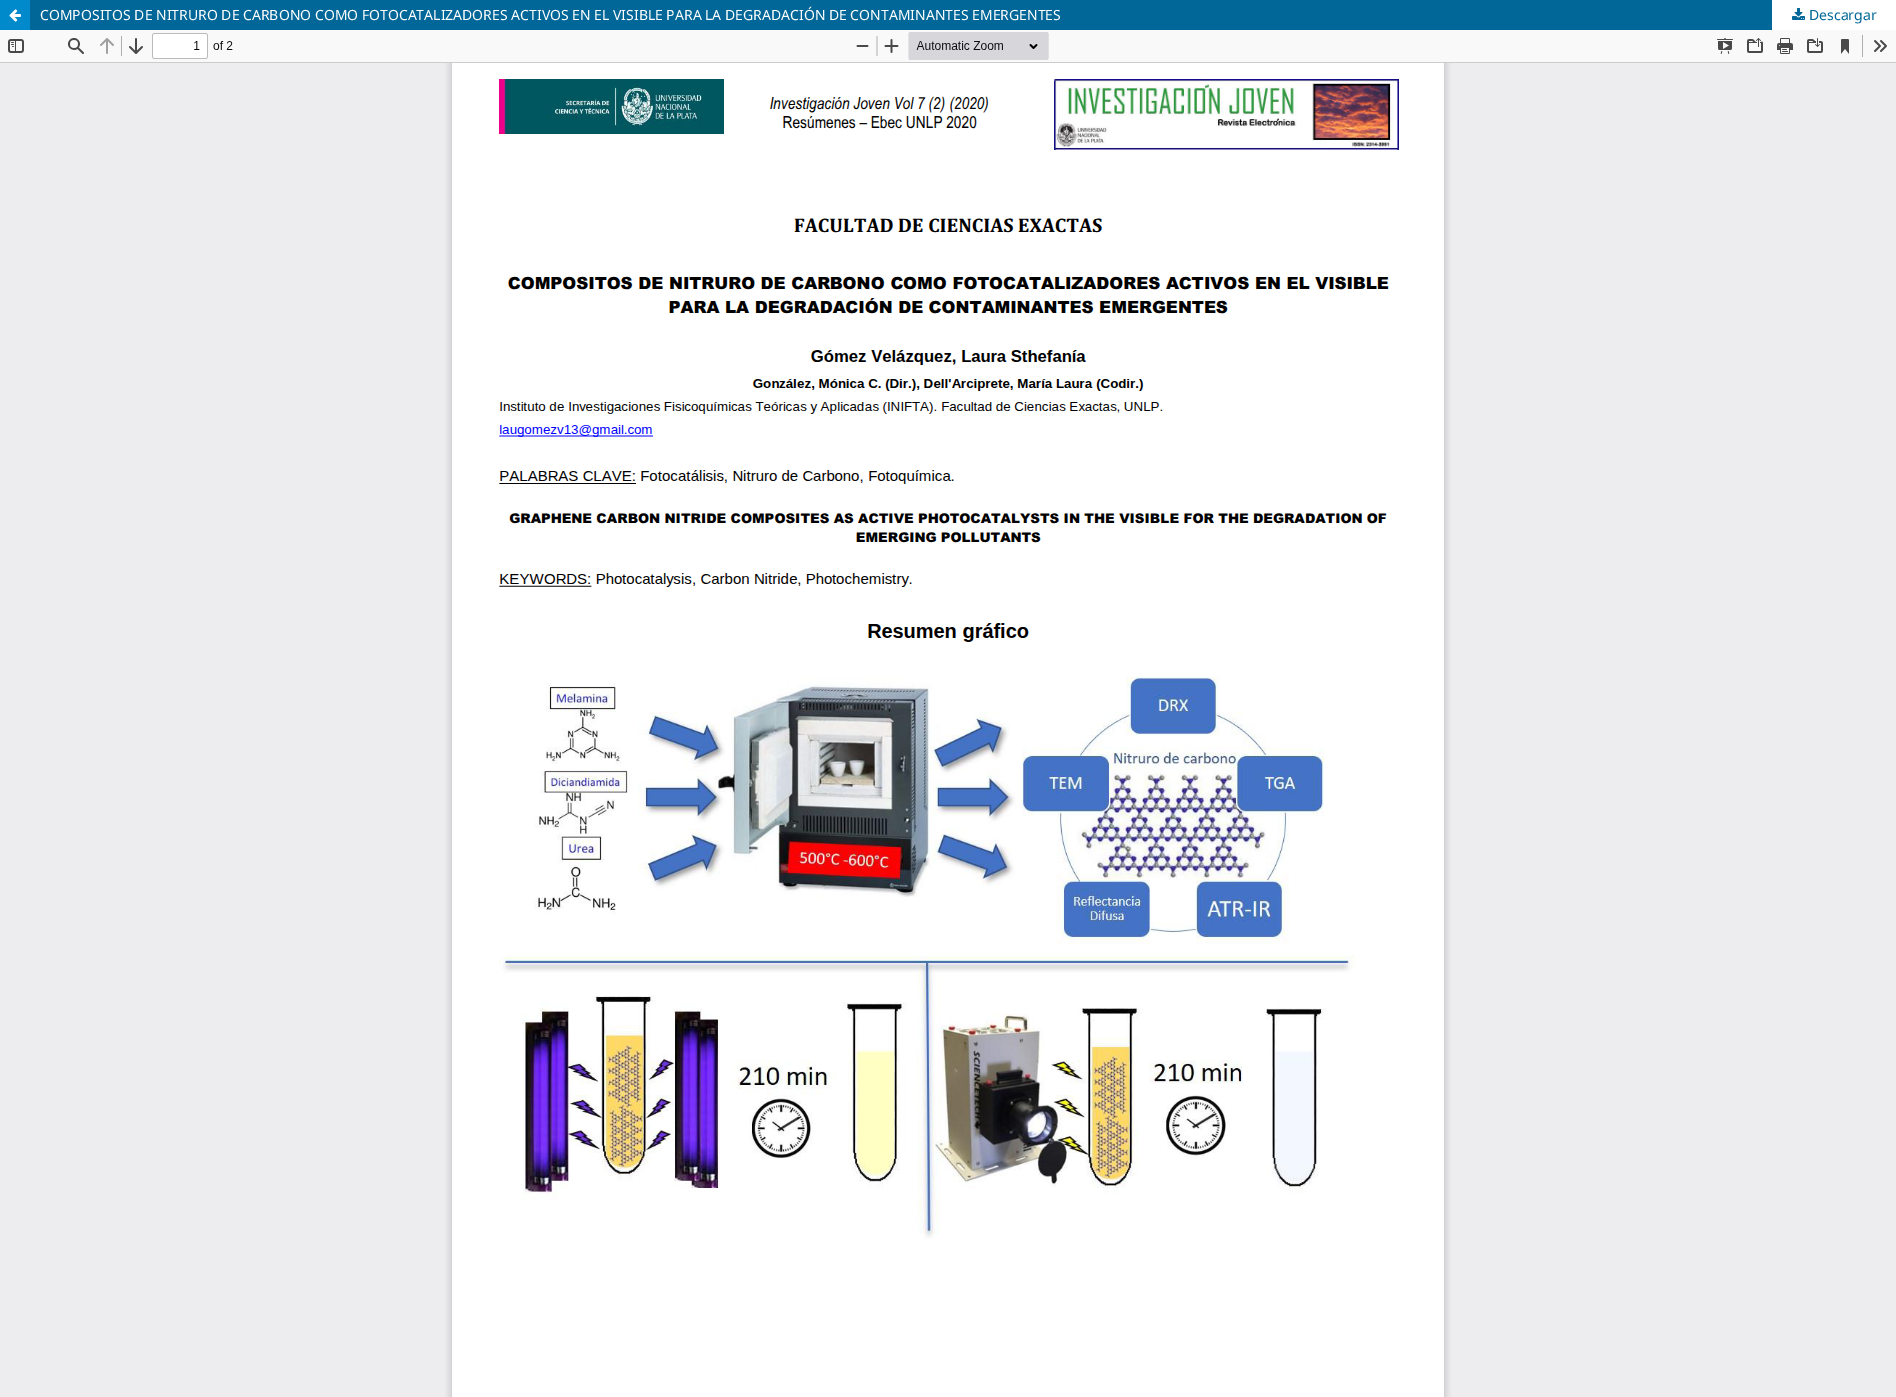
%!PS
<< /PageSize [1896 1397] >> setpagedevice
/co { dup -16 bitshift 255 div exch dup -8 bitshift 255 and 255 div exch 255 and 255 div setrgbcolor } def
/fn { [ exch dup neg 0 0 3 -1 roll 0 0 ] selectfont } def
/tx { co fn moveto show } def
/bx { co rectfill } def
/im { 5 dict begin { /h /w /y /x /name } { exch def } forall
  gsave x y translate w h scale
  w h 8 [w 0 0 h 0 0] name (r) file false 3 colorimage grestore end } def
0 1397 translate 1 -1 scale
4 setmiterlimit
0 0 1896 1397 16#FFFFFF bx
30 0 1742 30 16#006798 bx
0 0 30 30 16#008ACB bx
(media/1.raw) 9 9 12 13 im
(media/2.raw) 1792 8 13 12 im
(media/3.raw) 0 30 1896 1367 im
(COMPOSITOS DE NITRURO DE CARBONO COMO FOTOCATALIZADORES ACTIVOS EN EL VISIBLE PARA LA DEGRADACIÓN DE CONTAMINANTES EMERGENTES) 40 20 /NotoSans-Regular 14 16#FFFFFF tx
(Descargar) 1809 20 /NotoSans-Regular 14 16#006798 tx
showpage
